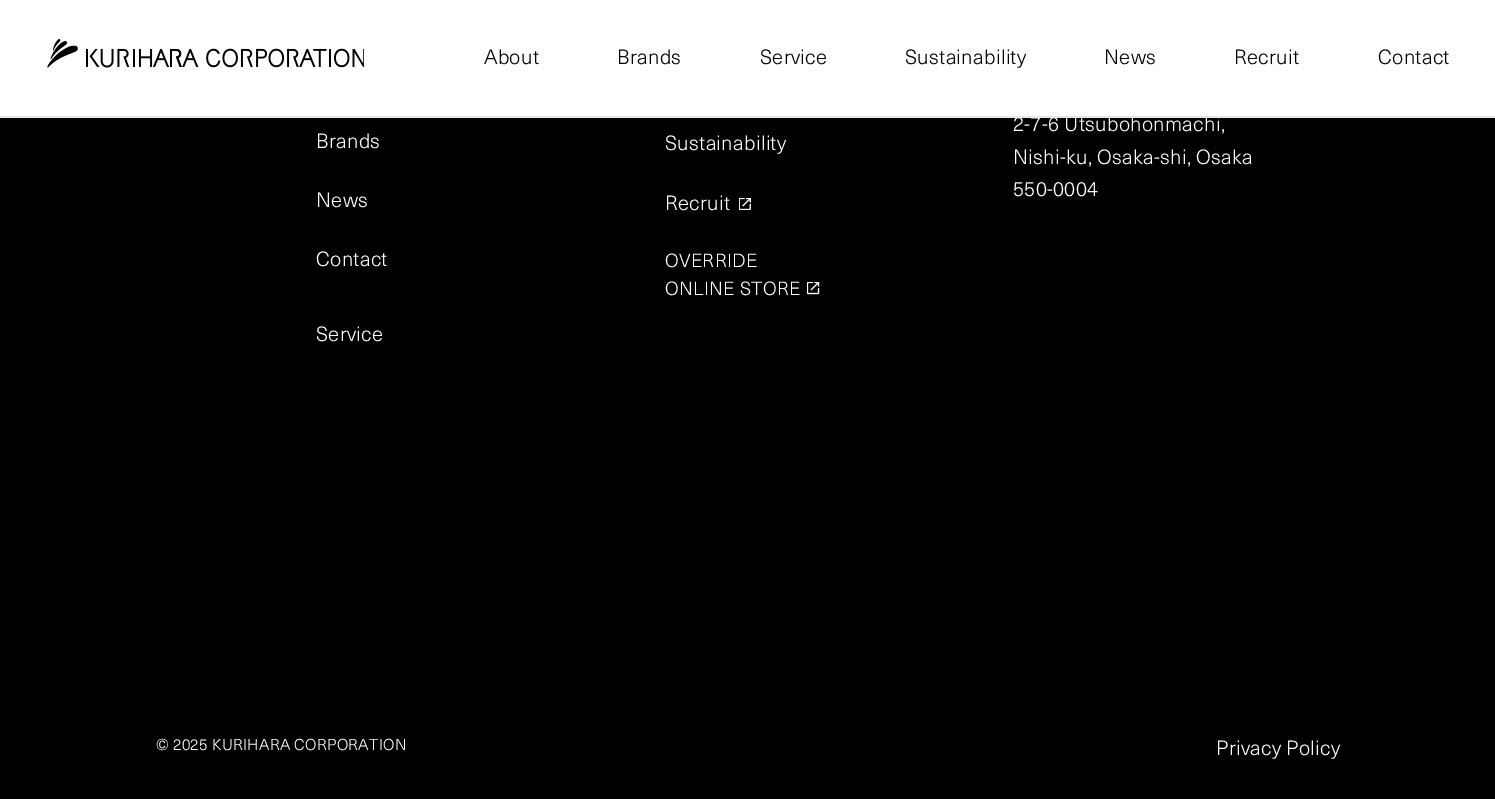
%!PS
<< /PageSize [1495 799] >> setpagedevice
/mt/moveto load def
/co { dup -16 bitshift 255 div exch dup -8 bitshift 255 and 255 div exch 255 and 255 div setrgbcolor } def
/fn { [ exch dup neg 0 0 3 -1 roll 0 0 ] selectfont } def
/bx { co rectfill } def
/im { 5 dict begin { /h /w /y /x /name } { exch def } forall
  gsave x y translate w h scale
  w h 8 [w 0 0 h 0 0] name (r) file false 3 colorimage grestore end } def
0 799 translate 1 -1 scale
4 setmiterlimit
0 0 1495 799 16#000000 bx
0 0 1495 116 16#FFFFFF bx
(media/1.raw) 47 39 317 29 im
(media/2.raw) 739 198 12 12 im
(media/3.raw) 807 282 13 13 im
/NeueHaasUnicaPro-Light 20.25 fn
16#000000 co
484 64 mt .3 0 (About) ashow
617 64 mt .3 0 (Brands) ashow
760 64 mt .3 0 (Service) ashow
905 64 mt .3 0 (Sustainability) ashow
1104 64 mt .3 0 (News) ashow
1234 64 mt .3 0 (Recruit) ashow
1378 64 mt .3 0 (Contact) ashow
16#FFFFFF co
316 148 mt .3 0 (Brands) ashow
665 150 mt .3 0 (Sustainability) ashow
1013 131 mt .3 0 (2-7-6 Utsubohonmachi,) ashow
0 116 1495 2 16#E8E8E8 bx
16#FFFFFF co
1013 164 mt .3 0 (Nishi-ku, Osaka-shi, Osaka) ashow
1013 196 mt .3 0 (550-0004) ashow
316 207 mt .3 0 (News) ashow
665 210 mt .3 0 (Recruit) ashow
316 266 mt .3 0 (Contact) ashow
/NeueHaasUnicaPro-Light 18.75 fn
665 267 mt .3 0 (OVERRIDE) ashow
665 295 mt .3 0 (ONLINE STORE) ashow
/NeueHaasUnicaPro-Light 20.25 fn
316 341 mt .3 0 (Service) ashow
/NeueHaasUnicaPro-Light 15.6 fn
156 750 mt .3 0 (© 2025 KURIHARA CORPORATION) ashow
/NeueHaasUnicaPro-Light 20.25 fn
1216 755 mt .3 0 (Privacy Policy) ashow
showpage
